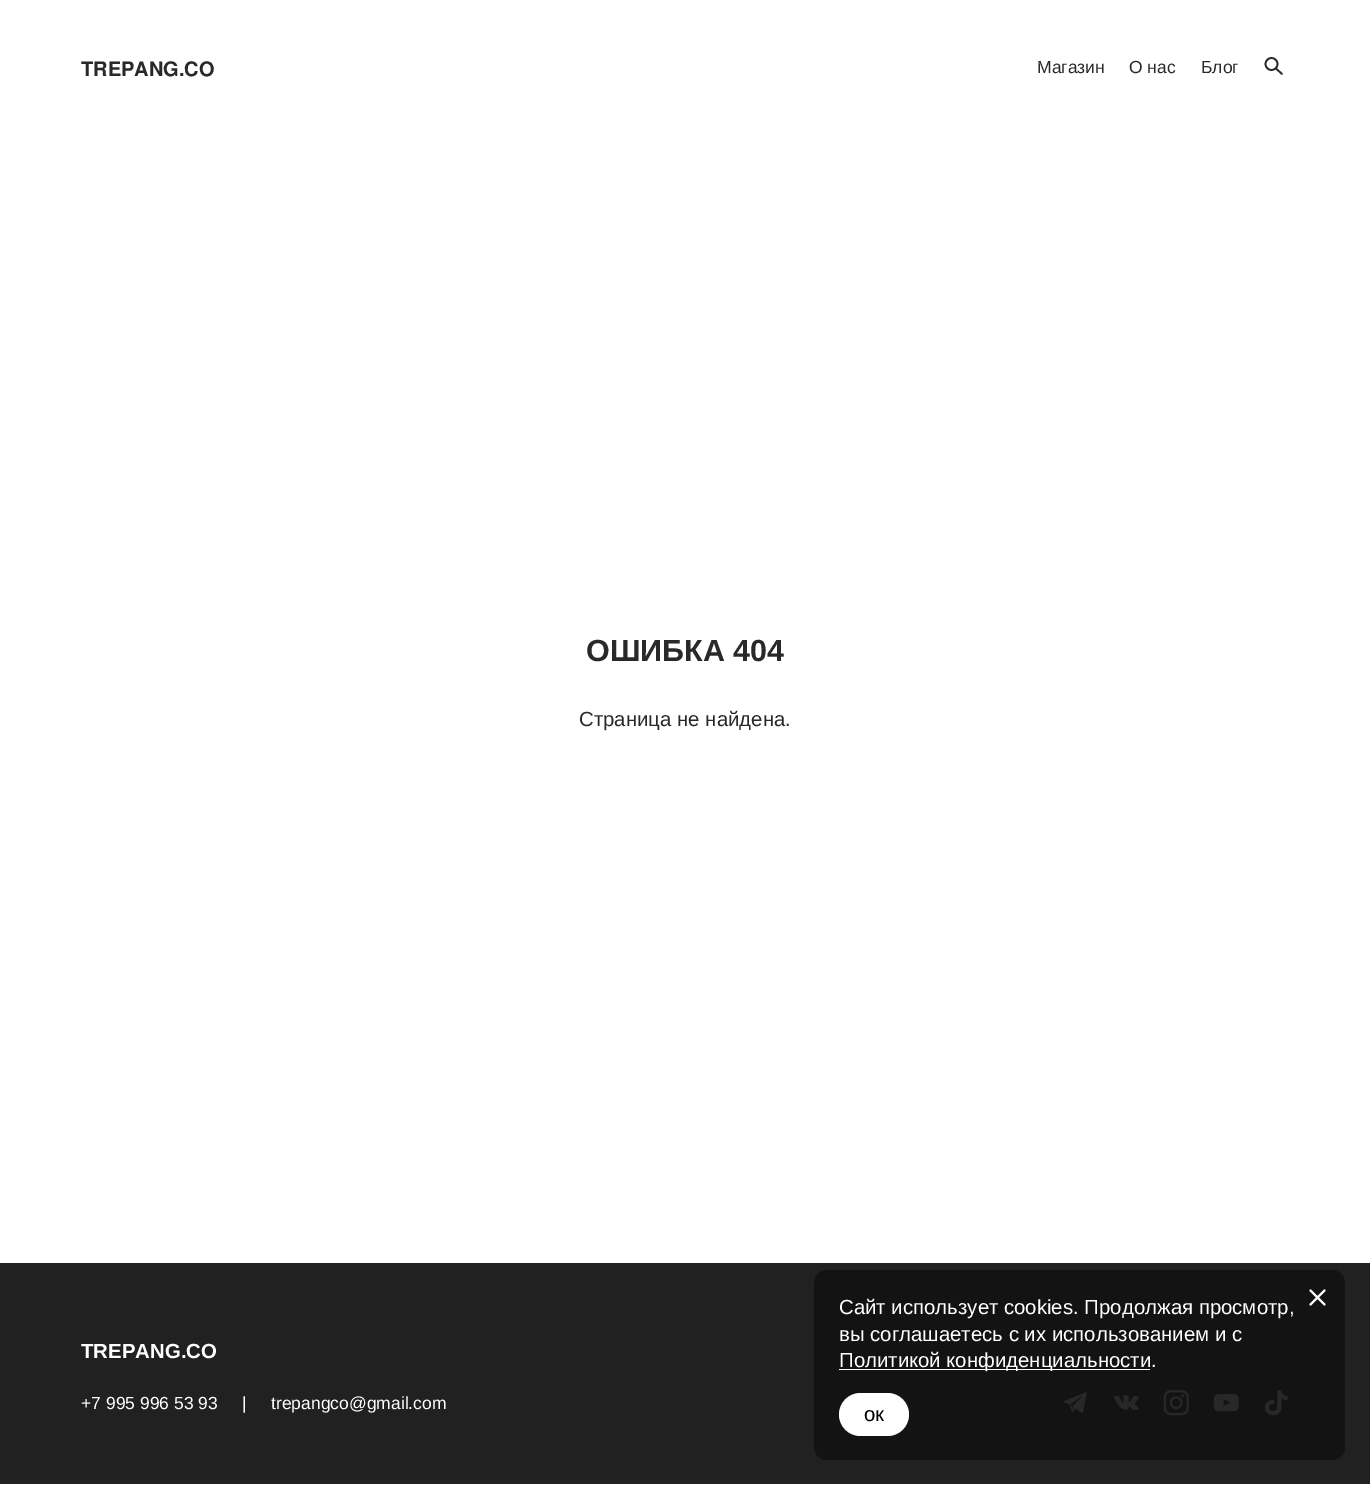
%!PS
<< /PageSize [1370 1485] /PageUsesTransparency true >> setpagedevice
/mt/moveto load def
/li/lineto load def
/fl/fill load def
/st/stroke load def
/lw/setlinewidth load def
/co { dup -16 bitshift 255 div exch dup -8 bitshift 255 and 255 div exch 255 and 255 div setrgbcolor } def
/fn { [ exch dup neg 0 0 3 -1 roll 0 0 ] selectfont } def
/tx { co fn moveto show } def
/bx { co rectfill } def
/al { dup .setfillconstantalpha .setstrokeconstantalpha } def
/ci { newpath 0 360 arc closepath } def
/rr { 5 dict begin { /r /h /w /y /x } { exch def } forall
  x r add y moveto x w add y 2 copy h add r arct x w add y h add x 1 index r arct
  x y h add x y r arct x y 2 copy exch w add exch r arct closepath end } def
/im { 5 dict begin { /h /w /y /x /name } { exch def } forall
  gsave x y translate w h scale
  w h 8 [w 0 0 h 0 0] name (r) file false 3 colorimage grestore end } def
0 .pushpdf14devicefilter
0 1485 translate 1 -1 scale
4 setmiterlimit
0 0 1370 1485 16#FFFFFF bx
16#292929 co
1.7 lw
1271.5 64 6 ci st
1 setlinecap
1 setlinejoin
1276 68.5 mt 1282 74 li st
0 1263 1370 221 16#212121 bx
(media/1.raw) 1063 1392 24 21 im
(media/2.raw) 1113 1395 26 15 im
(media/3.raw) 1163 1390 26 26 im
(media/4.raw) 1213 1394 26 18 im
(media/5.raw) 1264 1390 24 26 im
0.9 al
16#111111 co
814 1270 531 190 13 rr fl
1 al
839 1369 311 1 16#FFFFFF bx
839 1393 70 43 21.5 rr fl
1.9 lw
1324.5 1290.5 mt 1310.5 1304.5 li 1310.5 1290.5 mt 1324.5 1304.5 li st
(TREPANG.CO) 81 76 /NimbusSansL-Bold 20 16#292929 tx
(Магазин) 1037 73 /LiberationSans-Regular 17.5 16#292929 tx
(О нас) 1129 73 /LiberationSans-Regular 17.5 16#292929 tx
(Блог) 1201 73 /LiberationSans-Regular 17.5 16#292929 tx
(ОШИБКА 404) 586 661 /LiberationSans-Bold 30.5 16#292929 tx
(Страница не найдена.) 579 726 /LiberationSans-Regular 20.4 16#292929 tx
(TREPANG.CO) 81 1358 /LiberationSans-Bold 20.4 16#FFFFFF tx
(+7 995 996 53 93) 81 1409 /LiberationSans-Regular 17.5 16#FFFFFF tx
(|) 242 1409 /LiberationSans-Regular 17.5 16#FFFFFF tx
(trepangco@gmail.com) 271 1409 /LiberationSans-Regular 17.5 16#FFFFFF tx
(Сайт использует cookies. Продолжая просмотр,) 839 1314 /LiberationSans-Regular 20.4 16#FFFFFF tx
(вы соглашаетесь с их использованием и с) 839 1341 /LiberationSans-Regular 20.4 16#FFFFFF tx
(Политикой конфиденциальности.) 839 1367 /LiberationSans-Regular 20.4 16#FFFFFF tx
(ок) 864 1421 /LiberationSans-Regular 20.4 16#000000 tx
.poppdf14devicefilter showpage
